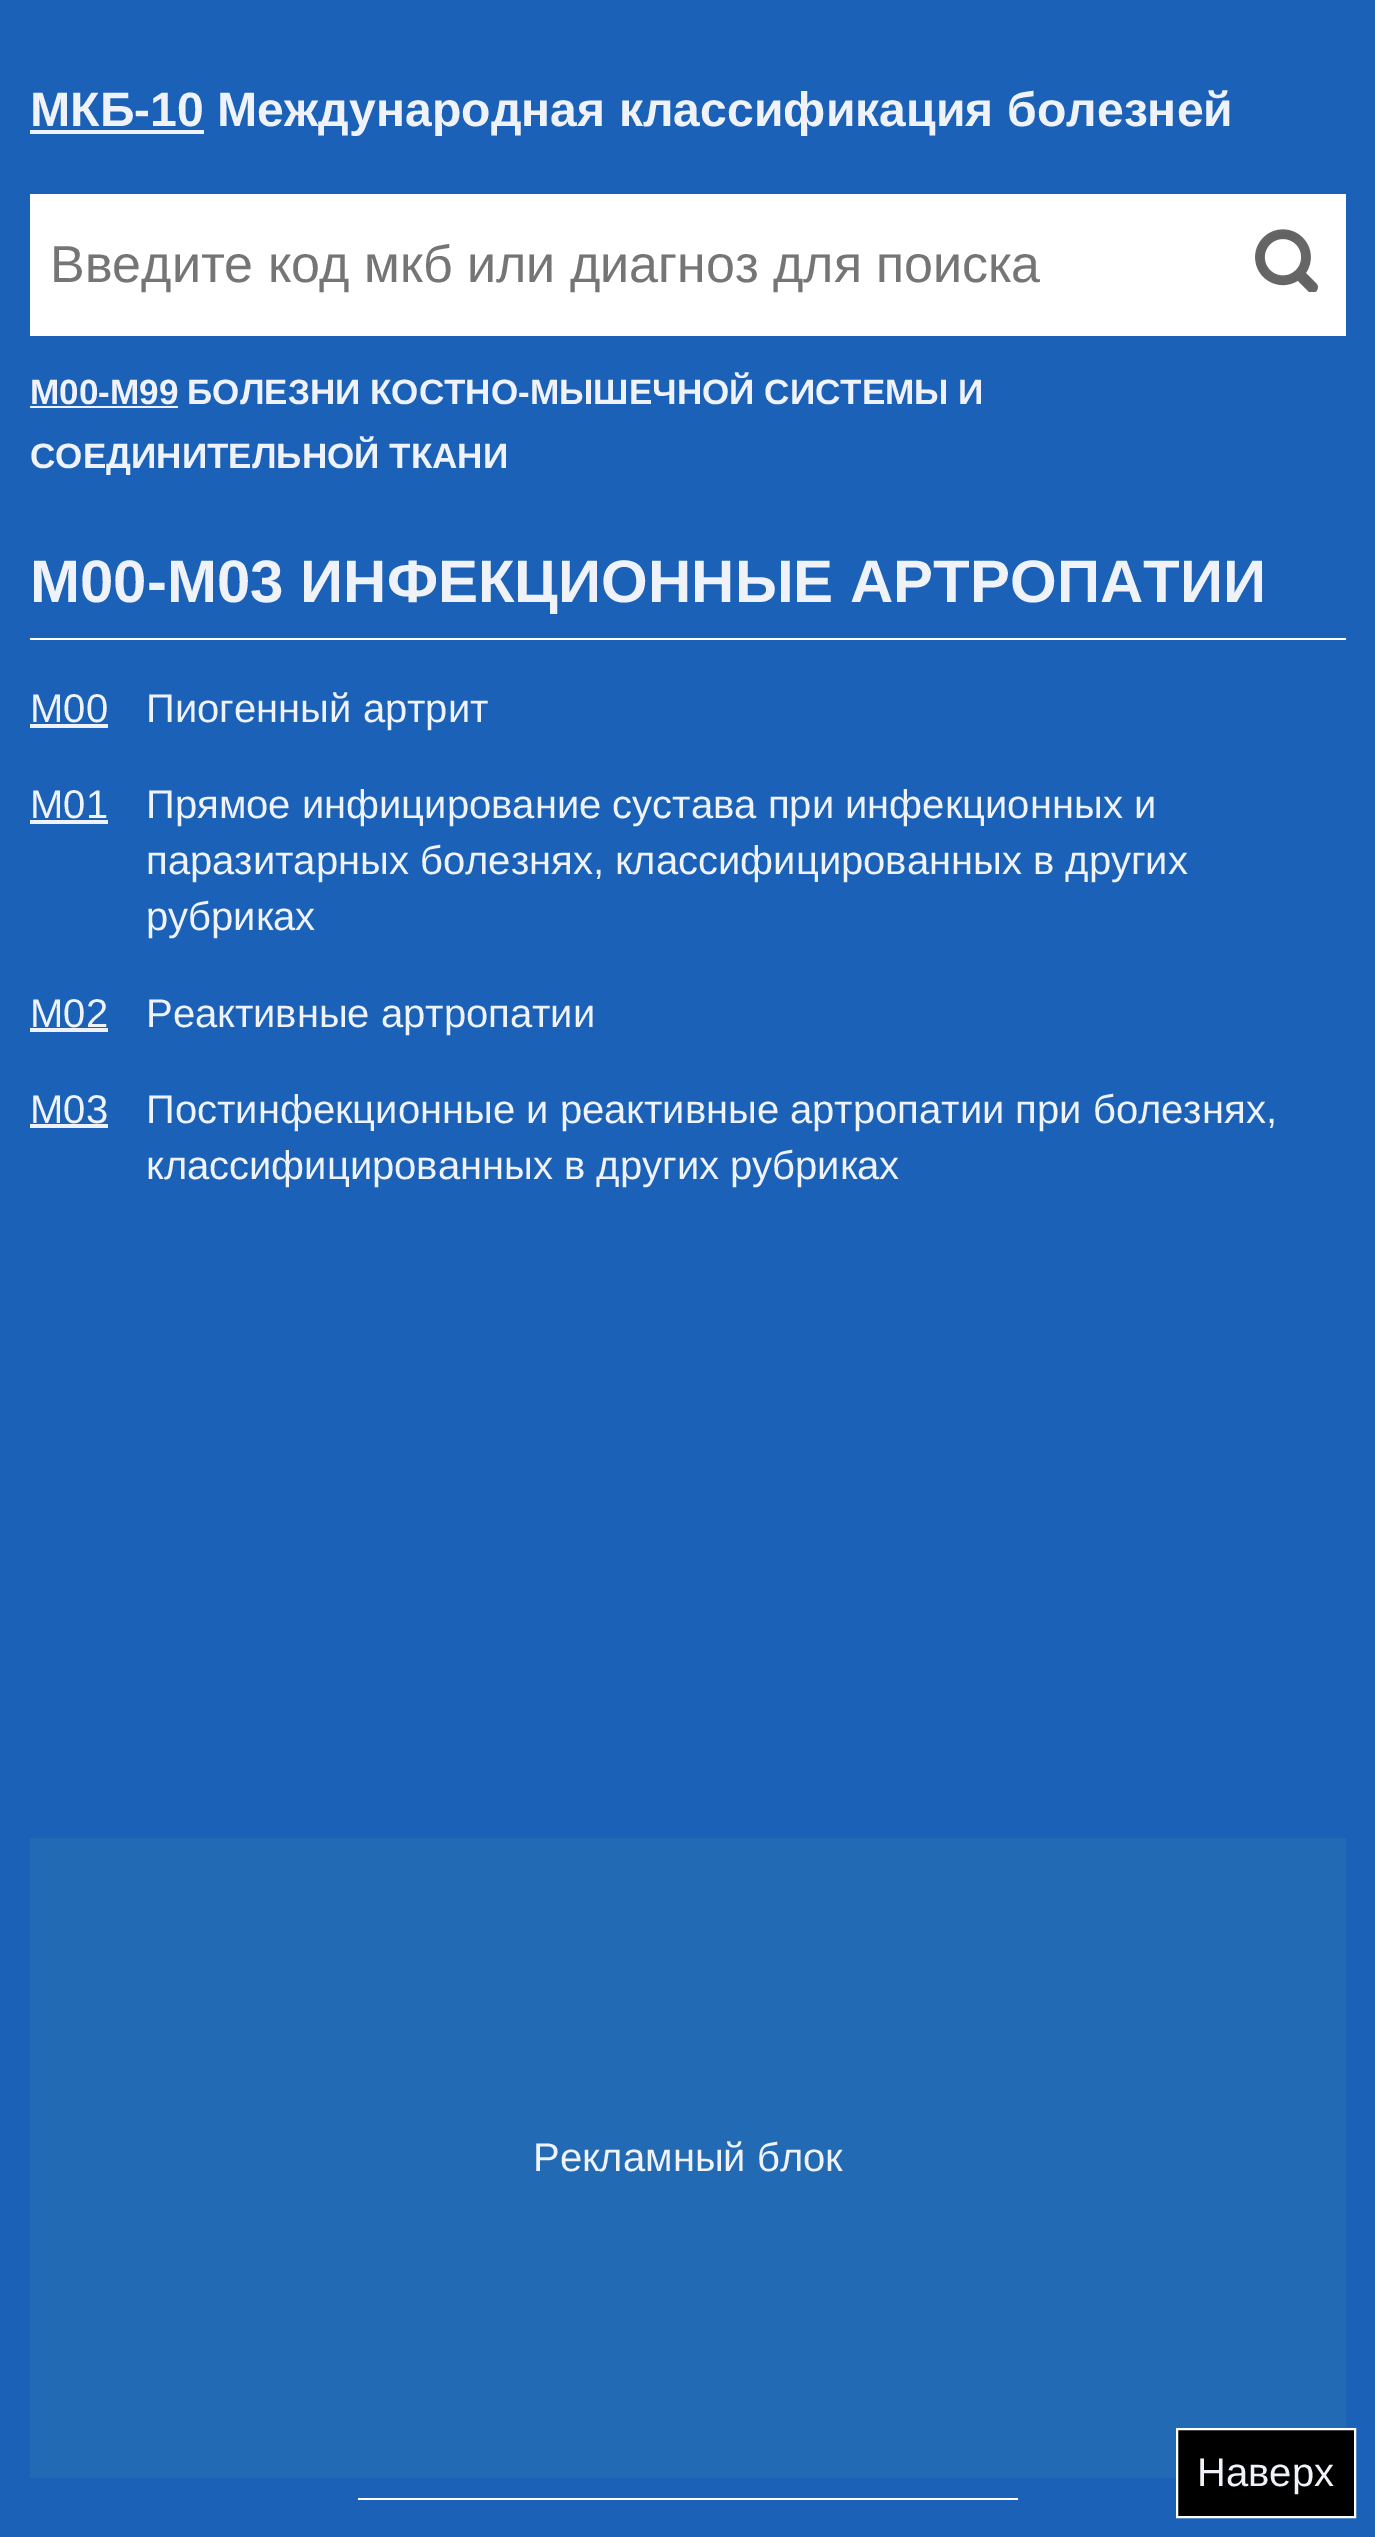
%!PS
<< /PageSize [1375 2537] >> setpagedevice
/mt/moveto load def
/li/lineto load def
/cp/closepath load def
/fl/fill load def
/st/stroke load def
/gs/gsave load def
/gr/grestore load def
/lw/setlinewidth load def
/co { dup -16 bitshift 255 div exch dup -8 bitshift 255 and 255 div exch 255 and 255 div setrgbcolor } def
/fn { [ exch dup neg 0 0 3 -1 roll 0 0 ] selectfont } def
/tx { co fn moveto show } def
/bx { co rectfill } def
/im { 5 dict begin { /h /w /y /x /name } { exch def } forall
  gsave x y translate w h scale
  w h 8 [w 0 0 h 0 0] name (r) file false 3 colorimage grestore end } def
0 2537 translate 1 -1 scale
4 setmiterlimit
0 0 1375 2537 16#1A61B7 bx
30 130 174 4 16#EFF3F9 bx
30 194 1316 142 16#FFFFFF bx
(media/1.raw) 1255 229 63 63 im
30 406 148 2 16#EFF3F9 bx
30 638 1316 2 16#FFFFFF bx
30 724 78 4 16#EFF3F9 bx
30 820 78 4 16#EFF3F9 bx
30 1028 78 4 16#EFF3F9 bx
30 1124 78 4 16#EFF3F9 bx
30 1838 1316 640 16#226BB4 bx
358 2498 660 2 16#FFFFFF bx
16#000000 co
1177 2429 mt 1355 2429 li 1355 2517 li 1177 2517 li cp gs fl gr
16#FFFFFF co
2 lw
st
(МКБ-10 Международная классификация болезней) 30 126 /LiberationSans-Bold 48.2 16#EFF3F9 tx
(Введите код мкб или диагноз для поиска) 50 282 /LiberationSans-Regular 52 16#757575 tx
(M00-M99) 30 404 /LiberationSans-Bold 35.1 16#EFF3F9 tx
(БОЛЕЗНИ КОСТНО-МЫШЕЧНОЙ СИСТЕМЫ И) 187 404 /LiberationSans-Bold 35.1 16#EFF3F9 tx
(СОЕДИНИТЕЛЬНОЙ ТКАНИ) 30 468 /LiberationSans-Bold 35.1 16#EFF3F9 tx
(M00-M03 ИНФЕКЦИОННЫЕ АРТРОПАТИИ) 30 602 /LiberationSans-Bold 60 16#EFF3F9 tx
(M00) 30 722 /LiberationSans-Regular 40 16#EFF3F9 tx
(Пиогенный артрит) 146 722 /LiberationSans-Regular 40 16#EFF3F9 tx
(M01) 30 818 /LiberationSans-Regular 40 16#EFF3F9 tx
(Прямое инфицирование сустава при инфекционных и) 146 818 /LiberationSans-Regular 40 16#EFF3F9 tx
(паразитарных болезнях, классифицированных в других) 146 874 /LiberationSans-Regular 40 16#EFF3F9 tx
(рубриках) 146 930 /LiberationSans-Regular 40 16#EFF3F9 tx
(M02) 30 1027 /LiberationSans-Regular 40 16#EFF3F9 tx
(Реактивные артропатии) 146 1027 /LiberationSans-Regular 40 16#EFF3F9 tx
(M03) 30 1123 /LiberationSans-Regular 40 16#EFF3F9 tx
(Постинфекционные и реактивные артропатии при болезнях,) 146 1123 /LiberationSans-Regular 40 16#EFF3F9 tx
(классифицированных в других рубриках) 146 1179 /LiberationSans-Regular 40 16#EFF3F9 tx
(Рекламный блок) 533 2171 /LiberationSans-Regular 40 16#EFF3F9 tx
(Наверх) 1197 2486 /LiberationSans-Regular 40 16#EFF3F9 tx
showpage
